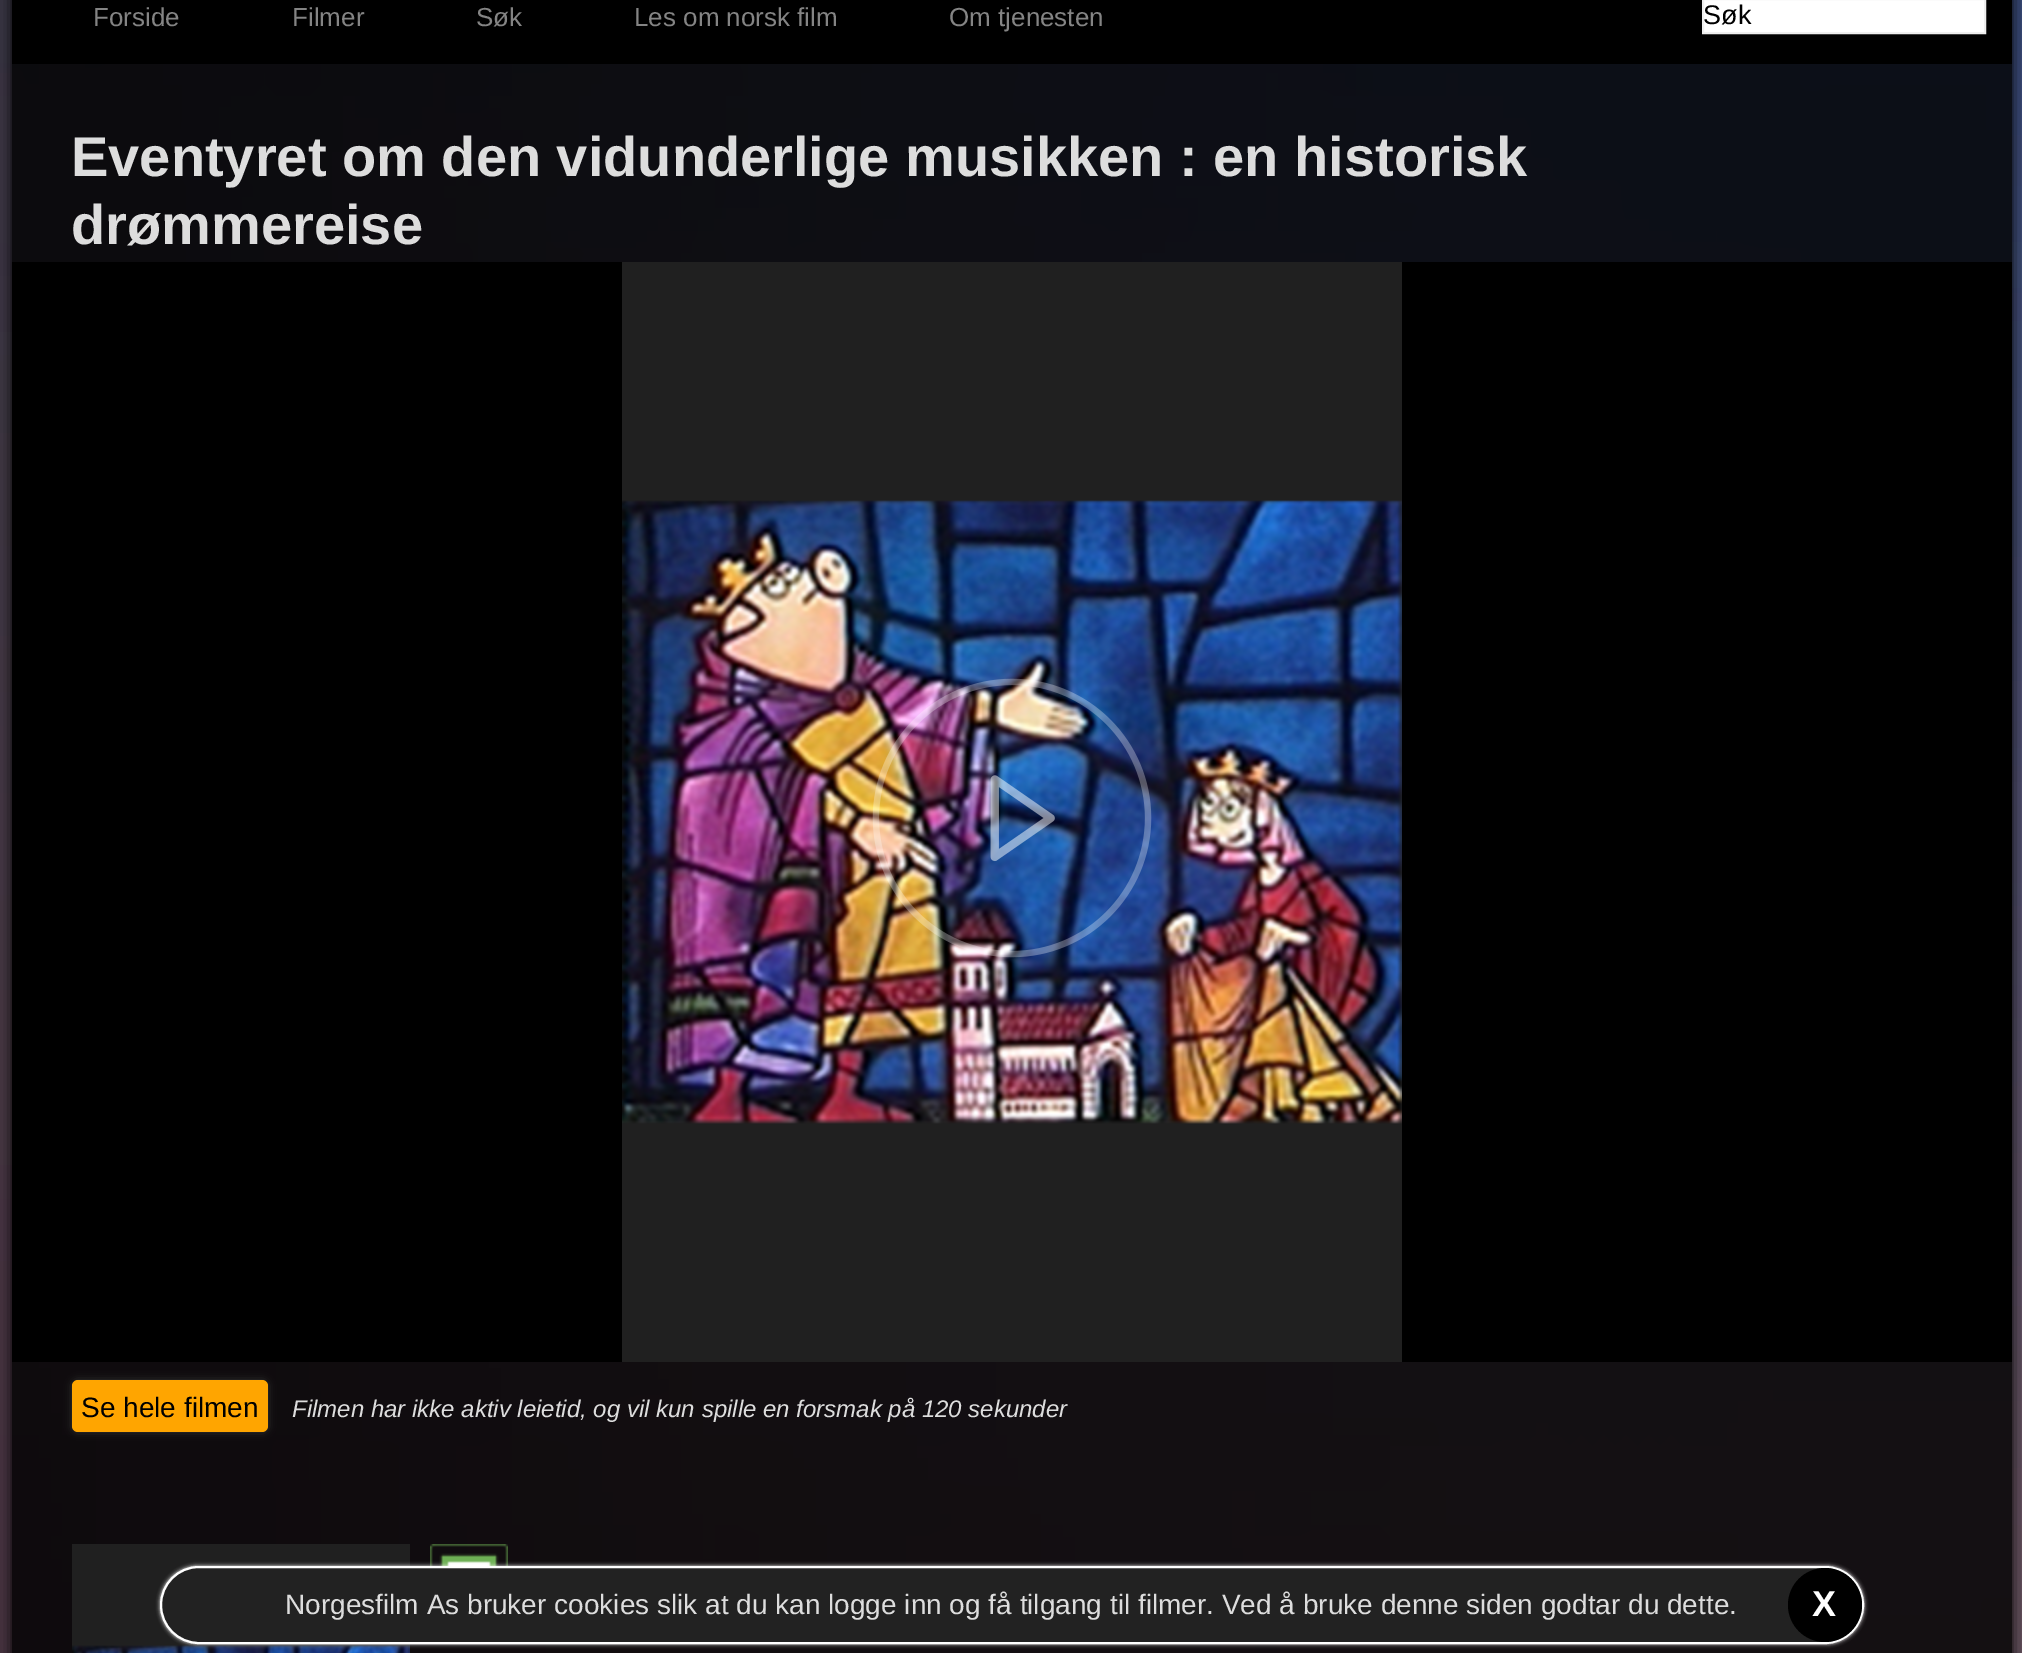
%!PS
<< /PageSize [2022 1653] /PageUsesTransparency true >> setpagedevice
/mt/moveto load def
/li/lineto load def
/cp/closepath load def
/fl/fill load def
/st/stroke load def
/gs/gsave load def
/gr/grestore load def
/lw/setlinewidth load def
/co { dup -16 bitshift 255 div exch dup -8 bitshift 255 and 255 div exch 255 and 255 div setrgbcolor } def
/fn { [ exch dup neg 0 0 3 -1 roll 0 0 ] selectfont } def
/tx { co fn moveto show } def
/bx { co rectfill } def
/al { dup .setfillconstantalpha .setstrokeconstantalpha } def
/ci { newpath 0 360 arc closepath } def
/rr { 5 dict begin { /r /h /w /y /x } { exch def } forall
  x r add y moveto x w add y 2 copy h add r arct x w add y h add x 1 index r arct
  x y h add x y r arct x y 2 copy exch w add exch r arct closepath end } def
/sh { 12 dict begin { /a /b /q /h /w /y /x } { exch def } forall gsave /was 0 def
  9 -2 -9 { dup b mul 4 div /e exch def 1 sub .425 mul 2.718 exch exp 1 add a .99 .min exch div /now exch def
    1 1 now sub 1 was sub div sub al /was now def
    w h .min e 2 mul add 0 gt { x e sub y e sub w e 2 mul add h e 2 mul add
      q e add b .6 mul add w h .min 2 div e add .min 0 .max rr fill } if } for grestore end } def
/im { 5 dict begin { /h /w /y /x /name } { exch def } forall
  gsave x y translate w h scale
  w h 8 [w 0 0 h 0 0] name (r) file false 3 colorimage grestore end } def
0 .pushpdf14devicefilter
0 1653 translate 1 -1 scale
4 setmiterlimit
0 0 2022 1653 16#FFFFFF bx
(media/1.raw) 0 0 2022 1653 im
gs
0 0 mt 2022 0 li 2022 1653 li 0 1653 li cp 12 -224 mt 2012 -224 li 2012 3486 li 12 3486 li cp eoclip newpath
16#000000 co
12 -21 2000 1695 0 7 1 sh
gr
12 0 2000 64 16#000000 bx
16#FFFFFF co
1703 -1 mt 1985 -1 li 1985 33 li 1703 33 li cp gs fl gr
16#EFEFEF co
2 lw
st
12 262 2000 1100 16#000000 bx
(media/2.raw) 622 262 780 1100 im
(media/3.raw) 872 678 280 280 im
16#333333 co
72 1380 196 52 6 4 1 sh
16#FFA500 co
72 1380 196 52 6 rr fl
(media/4.raw) 72 1544 338 109 im
(media/5.raw) 430 1544 78 22 im
16#FFFFFF co
160 1566 1704 78 39 2 1 sh
16#222222 co
161 1567 1702 76 38 rr gs fl gr
16#FFFFFF co
st
16#000000 co
1825 1605 37 ci fl
(Forside) 93 26 /LiberationSans-Regular 26 16#848484 tx
(Filmer) 292 26 /LiberationSans-Regular 26 16#848484 tx
(Søk) 476 26 /LiberationSans-Regular 26 16#848484 tx
(Les om norsk film) 634 26 /LiberationSans-Regular 26 16#848484 tx
(Om tjenesten) 949 26 /LiberationSans-Regular 26 16#848484 tx
(Søk) 1703 24 /LiberationSans-Regular 27 16#000000 tx
(Eventyret om den vidunderlige musikken : en historisk) 71 176 /LiberationSans-Bold 56 16#DDDDDD tx
(drømmereise) 71 244 /LiberationSans-Bold 56 16#DDDDDD tx
(Se hele filmen) 81 1417 /LiberationSans-Regular 28 16#000000 tx
(Filmen har ikke aktiv leietid, og vil kun spille en forsmak på 120 sekunder) 292 1417 /LiberationSans-Italic 24 16#DDDDDD tx
(Norgesfilm As bruker cookies slik at du kan logge inn og få tilgang til filmer. Ved å bruke denne siden godtar du dette.) 285 1614 /LiberationSans-Regular 28 16#DDDDDD tx
(X) 1812 1616 /LiberationSans-Bold 36 16#FFFFFF tx
.poppdf14devicefilter showpage
